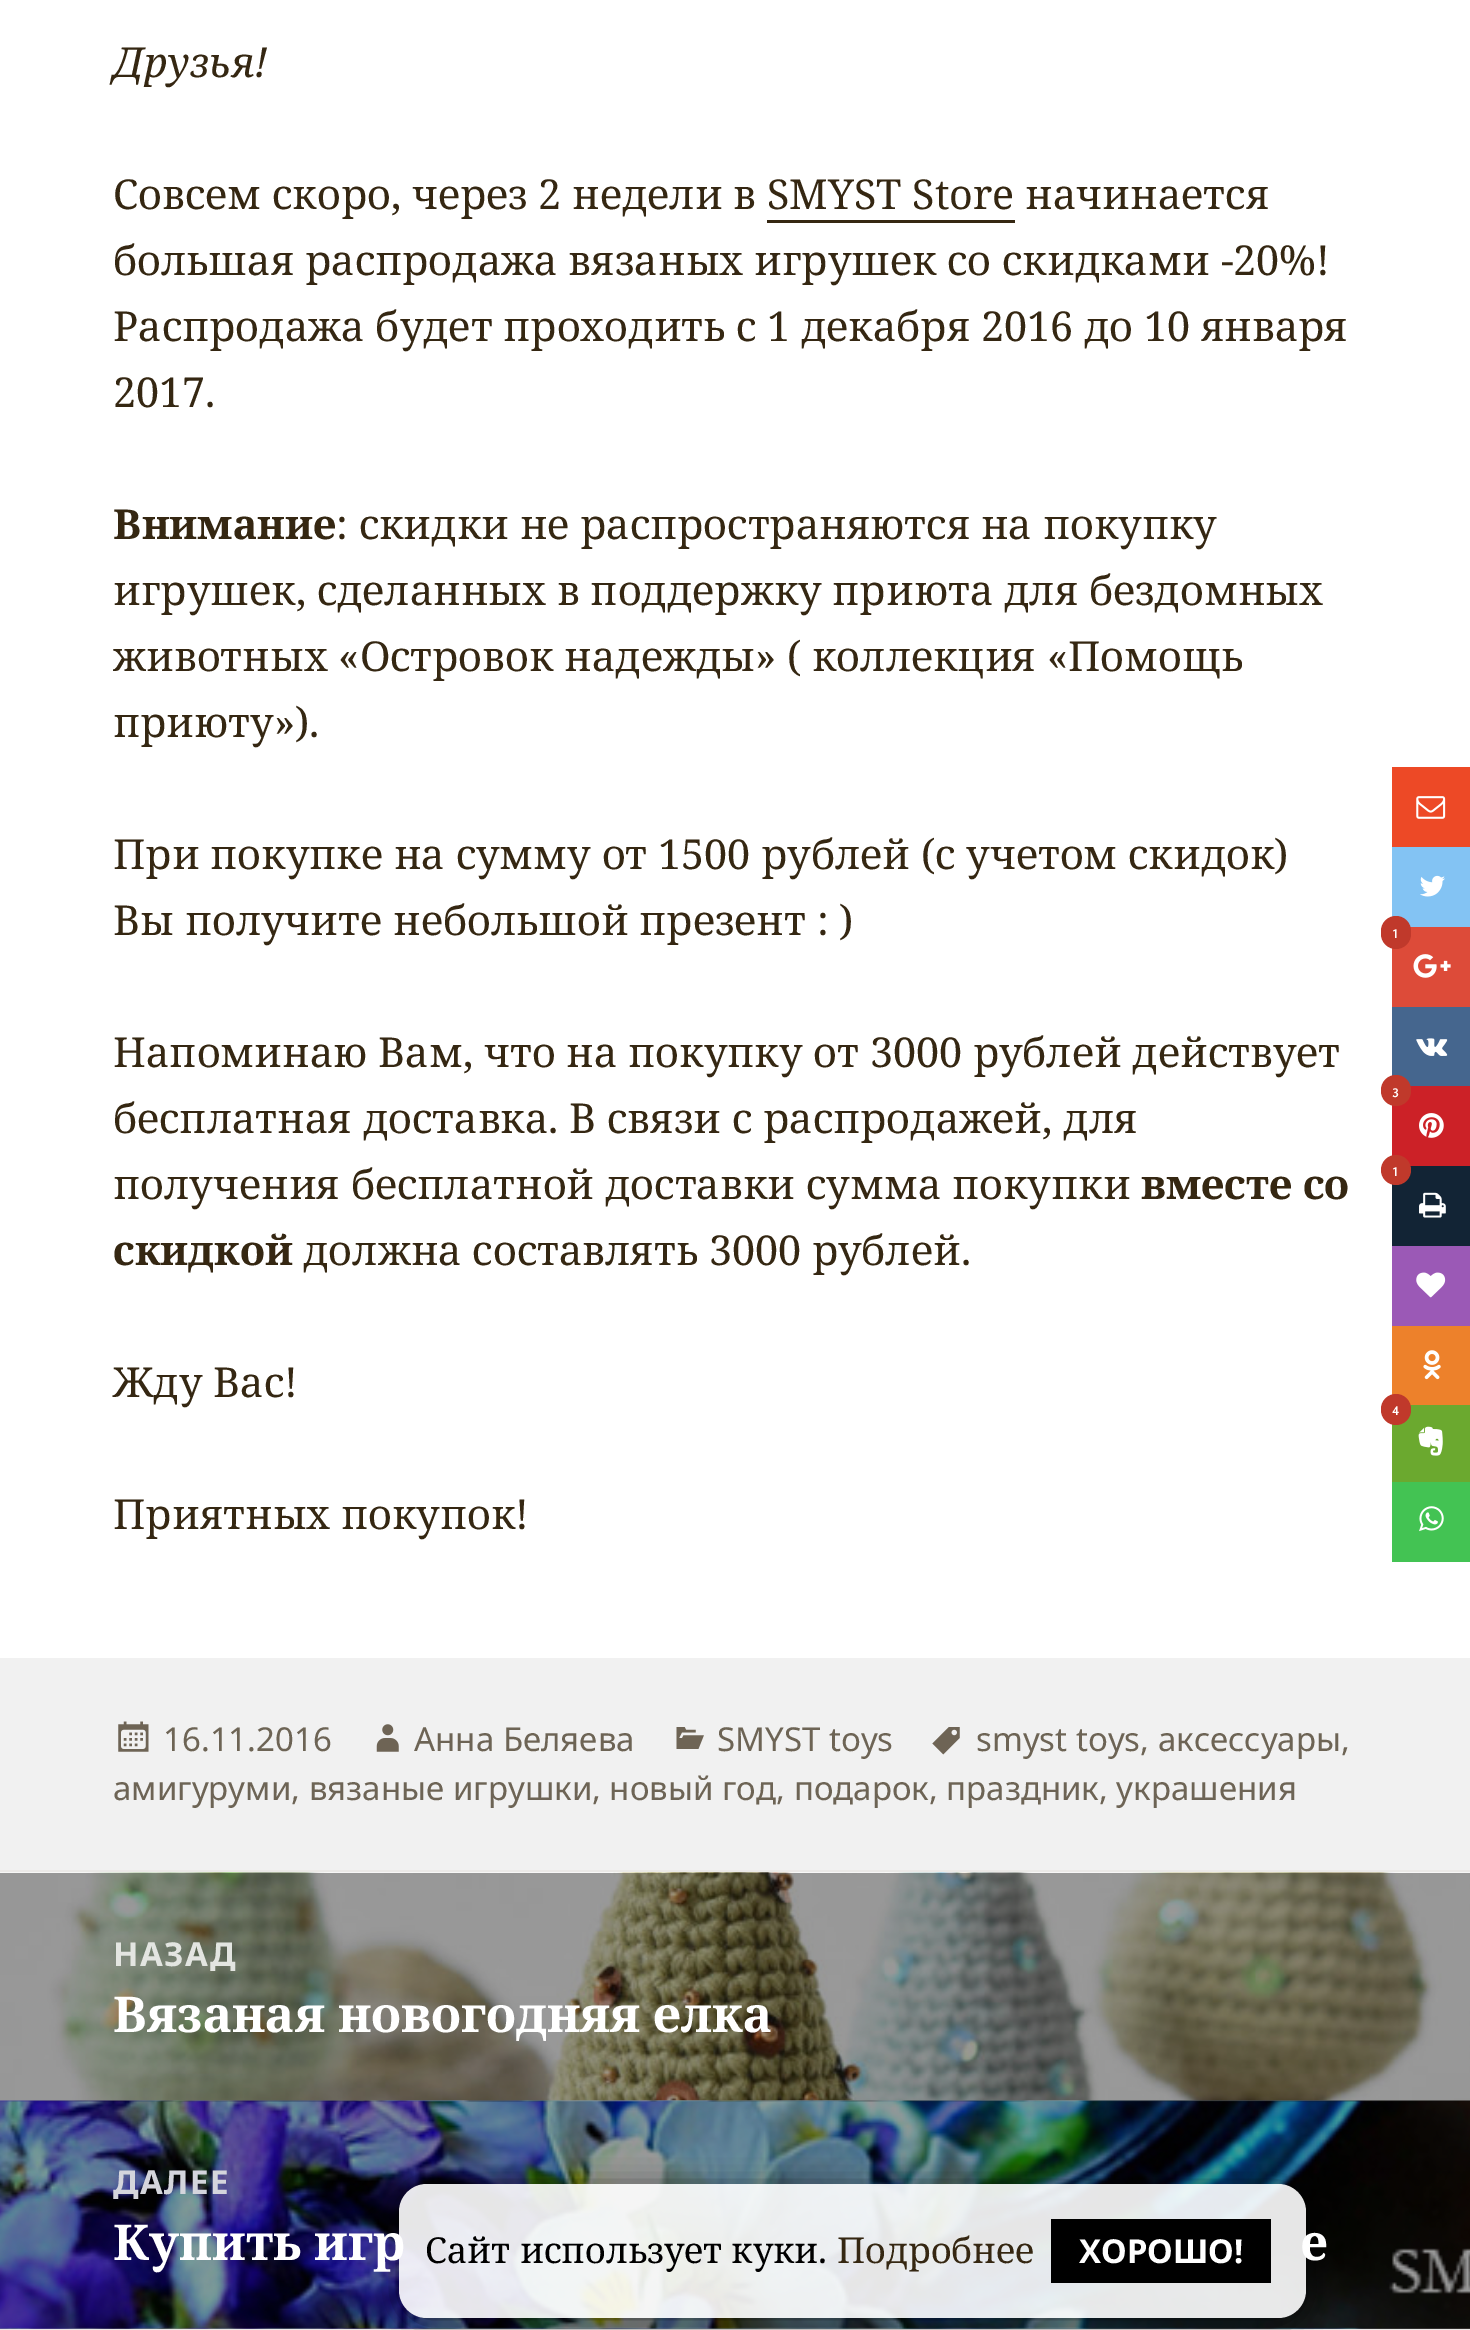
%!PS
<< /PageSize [1470 2330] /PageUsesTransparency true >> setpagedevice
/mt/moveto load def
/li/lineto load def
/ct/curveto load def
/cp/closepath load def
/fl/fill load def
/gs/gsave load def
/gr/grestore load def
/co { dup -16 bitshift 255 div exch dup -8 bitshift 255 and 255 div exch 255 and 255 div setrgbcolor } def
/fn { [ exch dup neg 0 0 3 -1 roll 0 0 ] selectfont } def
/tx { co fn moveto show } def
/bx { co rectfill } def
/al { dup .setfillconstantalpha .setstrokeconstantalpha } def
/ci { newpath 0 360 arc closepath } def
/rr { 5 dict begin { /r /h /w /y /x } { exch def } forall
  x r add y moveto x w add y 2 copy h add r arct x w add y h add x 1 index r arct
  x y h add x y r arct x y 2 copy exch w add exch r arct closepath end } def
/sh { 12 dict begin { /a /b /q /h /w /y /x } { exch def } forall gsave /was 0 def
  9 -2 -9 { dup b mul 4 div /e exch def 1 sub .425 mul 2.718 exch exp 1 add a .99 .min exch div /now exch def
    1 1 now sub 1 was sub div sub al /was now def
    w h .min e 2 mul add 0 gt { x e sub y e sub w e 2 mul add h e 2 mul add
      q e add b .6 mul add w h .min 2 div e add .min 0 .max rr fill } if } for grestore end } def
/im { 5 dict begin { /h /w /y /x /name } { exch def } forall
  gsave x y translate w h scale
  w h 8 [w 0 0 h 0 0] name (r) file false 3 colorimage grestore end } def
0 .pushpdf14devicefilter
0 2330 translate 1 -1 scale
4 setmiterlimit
0 0 1470 2330 16#FFFFFF bx
(media/1.raw) 0 2100 1470 229 im
767 220 248 3 16#352712 bx
0 1658 1470 212 16#F1F1F1 bx
(media/2.raw) 118 1721 31 31 im
(media/3.raw) 376 1724 23 28 im
(media/4.raw) 676 1727 28 22 im
(media/5.raw) 932 1727 28 28 im
0 1870 1470 3 16#EBE9E7 bx
(media/6.raw) 0 1872 1470 229 im
(media/7.raw) 0 2100 1470 229 im
0.4 al
0 1873 1470 228 16#000000 bx
0 2101 1470 228 16#000000 bx
1 al
0 2329 1470 1 16#EBE9E7 bx
1392 767 78 80 16#ED4926 bx
(media/8.raw) 1416 796 30 23 im
1392 847 78 80 16#83C3F3 bx
(media/9.raw) 1420 875 25 22 im
1392 927 78 80 16#DD4B39 bx
16#C0392B co
1381 916 30 33 15 rr fl
(media/10.raw) 1413 954 38 24 im
1392 1007 78 79 16#45668E bx
(media/11.raw) 1416 1038 32 18 im
1392 1086 78 80 16#CC2127 bx
16#C0392B co
1381 1075 30 31 15 rr fl
(media/12.raw) 1419 1113 25 25 im
1392 1166 78 80 16#122435 bx
16#C0392B co
1396 1170 15 ci fl
(media/13.raw) 1419 1192 27 26 im
1392 1246 78 80 16#9B59B6 bx
(media/14.raw) 1416 1272 30 26 im
1392 1326 78 79 16#ED812B bx
(media/15.raw) 1423 1350 18 30 im
1392 1405 78 77 16#6BA92F bx
16#C0392B co
1381 1394 30 31 15 rr fl
(media/16.raw) 1418 1426 25 30 im
1392 1482 78 80 16#43C353 bx
(media/17.raw) 1419 1506 25 26 im
gs
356 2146 mt 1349 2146 li 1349 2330 li 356 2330 li cp 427 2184 mt 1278 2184 li 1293.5 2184 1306 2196.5 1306 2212 ct 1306 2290 li 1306 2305.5 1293.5 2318 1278 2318 ct 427 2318 li 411.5 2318 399 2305.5 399 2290 ct 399 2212 li 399 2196.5 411.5 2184 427 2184 ct cp eoclip newpath
16#000000 co
399 2189 907 135 28 14 .6 sh
gr
(Друзья!) 113 77 /NotoSerif-Italic 41.25 16#352712 tx
(Совсем скоро, через 2 недели в SMYST Store начинается) 113 209 /NotoSerif-Regular 41.25 16#352712 tx
(большая распродажа вязаных игрушек со скидками -20%!) 113 275 /NotoSerif-Regular 41.25 16#352712 tx
(Распродажа будет проходить с 1 декабря 2016 до 10 января) 113 341 /NotoSerif-Regular 41.25 16#352712 tx
(2017.) 113 407 /NotoSerif-Regular 41.25 16#352712 tx
(Внимание) 113 539 /NotoSerif-Bold 41.25 16#352712 tx
(: скидки не распространяются на покупку) 336 539 /NotoSerif-Regular 41.25 16#352712 tx
(игрушек, сделанных в поддержку приюта для бездомных) 113 605 /NotoSerif-Regular 41.25 16#352712 tx
(животных «Островок надежды» \( коллекция «Помощь) 113 671 /NotoSerif-Regular 41.25 16#352712 tx
(приюту»\).) 113 737 /NotoSerif-Regular 41.25 16#352712 tx
(При покупке на сумму от 1500 рублей \(с учетом скидок\)) 113 869 /NotoSerif-Regular 41.25 16#352712 tx
(Вы получите небольшой презент : \)) 113 935 /NotoSerif-Regular 41.25 16#352712 tx
(Напоминаю Вам, что на покупку от 3000 рублей действует) 113 1067 /NotoSerif-Regular 41.25 16#352712 tx
(бесплатная доставка. В связи с распродажей, для) 113 1133 /NotoSerif-Regular 41.25 16#352712 tx
(получения бесплатной доставки сумма покупки) 113 1199 /NotoSerif-Regular 41.25 16#352712 tx
(вместе со) 1141 1199 /NotoSerif-Bold 41.25 16#352712 tx
(скидкой) 113 1265 /NotoSerif-Bold 41.25 16#352712 tx
(должна составлять 3000 рублей.) 303 1265 /NotoSerif-Regular 41.25 16#352712 tx
(Жду Вас!) 113 1397 /NotoSerif-Regular 41.25 16#352712 tx
(Приятных покупок!) 113 1529 /NotoSerif-Regular 41.25 16#352712 tx
(16.11.2016) 163 1751 /NotoSans-Regular 33 16#6D6455 tx
(Анна Беляева) 414 1751 /NotoSans-Regular 33 16#6D6455 tx
(SMYST toys) 717 1751 /NotoSans-Regular 33 16#6D6455 tx
(smyst toys, аксессуары,) 976 1751 /NotoSans-Regular 33 16#6D6455 tx
(амигуруми, вязаные игрушки, новый год, подарок, праздник, украшения) 113 1800 /NotoSans-Regular 33 16#6D6455 tx
/NotoSans-Bold 33 fn
16#E3E5E1 co
113 1966 mt 1.5 0 (НАЗАД) ashow
(Вязаная новогодняя елка) 113 2032 /NotoSerif-Bold 49.5 16#FFFFFF tx
/NotoSans-Bold 33 fn
16#D4D5DC co
113 2194 mt 1.5 0 (ДАЛЕЕ) ashow
(Купить игр) 113 2260 /NotoSerif-Bold 49.5 16#FFFFFF tx
(e) 1300 2260 /NotoSerif-Bold 49.5 16#FFFFFF tx
(1) 1392 938 /Inconsolata-Bold 14 16#FFFFFF tx
(3) 1392 1097 /Inconsolata-Bold 14 16#FFFFFF tx
(1) 1392 1176 /Inconsolata-Bold 14 16#FFFFFF tx
(4) 1392 1415 /Inconsolata-Bold 14 16#FFFFFF tx
0.9 al
399 2184 907 134 28 rr fl
1 al
(Сайт использует куки.) 425 2263 /NotoSerif-Regular 35.75 16#000000 tx
(Подробнее) 837 2263 /NotoSerif-Regular 35.75 16#352712 tx
1051 2219 220 64 16#000000 bx
(ХОРОШО!) 1079 2263 /NotoSans-Bold 33 16#FFFFFF tx
.poppdf14devicefilter showpage
